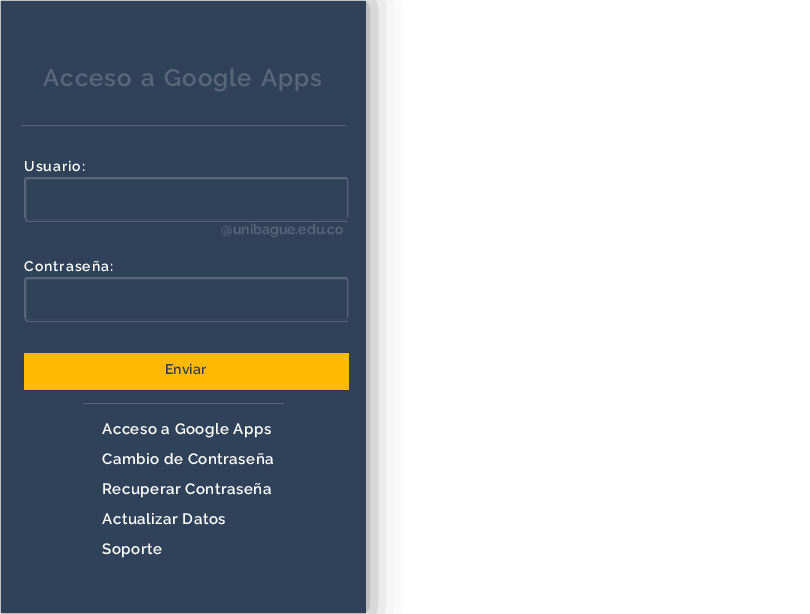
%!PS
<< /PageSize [810 614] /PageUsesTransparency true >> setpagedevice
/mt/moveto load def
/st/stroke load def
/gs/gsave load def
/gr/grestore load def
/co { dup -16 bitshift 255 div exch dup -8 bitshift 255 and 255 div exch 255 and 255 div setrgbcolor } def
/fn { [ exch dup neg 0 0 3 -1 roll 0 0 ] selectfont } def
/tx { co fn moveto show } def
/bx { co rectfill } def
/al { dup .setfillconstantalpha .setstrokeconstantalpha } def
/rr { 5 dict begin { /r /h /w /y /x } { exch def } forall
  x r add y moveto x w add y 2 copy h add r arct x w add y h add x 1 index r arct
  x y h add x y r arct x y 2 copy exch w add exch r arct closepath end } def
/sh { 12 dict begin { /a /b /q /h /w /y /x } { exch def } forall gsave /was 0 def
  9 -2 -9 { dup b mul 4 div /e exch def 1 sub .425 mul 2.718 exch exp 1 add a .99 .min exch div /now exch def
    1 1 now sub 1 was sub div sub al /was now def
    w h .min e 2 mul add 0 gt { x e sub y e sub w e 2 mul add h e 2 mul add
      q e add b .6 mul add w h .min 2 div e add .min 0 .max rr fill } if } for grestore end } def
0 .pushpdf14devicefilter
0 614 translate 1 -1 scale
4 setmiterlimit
0 0 810 614 16#FFFFFF bx
16#000000 co
1 1 365 612 0 16.5 .5 sh
1 1 365 612 16#30425A bx
21 125 325 1 16#58677C bx
24.5 177.5 323 41 2.5 rr st
25 178 322 41 16#30425A bx
gs
25 178 322 44 rectclip
16#58677C co
25.5 178.5 323 43 2.5 rr st
gr
16#58677C co
24.5 277.5 323 41 2.5 rr st
25 278 322 41 16#30425A bx
gs
25 278 322 44 rectclip
16#58677C co
25.5 278.5 323 43 2.5 rr st
gr
16#000000 co
24 354 325 37 0 .5 .15 sh
24 353 325 37 16#FFB901 bx
83 403 201 1 16#58677C bx
/Raleway-SemiBold 24 fn
43 86 mt 1.5 0 32 1 0 (Acceso a Google Apps) awidthshow
/Raleway-SemiBold 14 fn
16#FFFFFF co
24 171 mt 1 0 (Usuario:) ashow
(@unibague.edu.co) 221 234 /Raleway-SemiBold 14 16#58677C tx
16#FFFFFF co
24 271 mt 1 0 (Contraseña:) ashow
(Enviar) 165 374 /Raleway-SemiBold 14 16#30425A tx
/Raleway-SemiBold 15 fn
16#FFFFFF co
102 434 mt .5 0 (Acceso a Google Apps) ashow
102 464 mt .5 0 (Cambio de Contraseña) ashow
102 494 mt .5 0 (Recuperar Contraseña) ashow
102 524 mt .5 0 (Actualizar Datos) ashow
102 554 mt .5 0 (Soporte) ashow
.poppdf14devicefilter showpage
